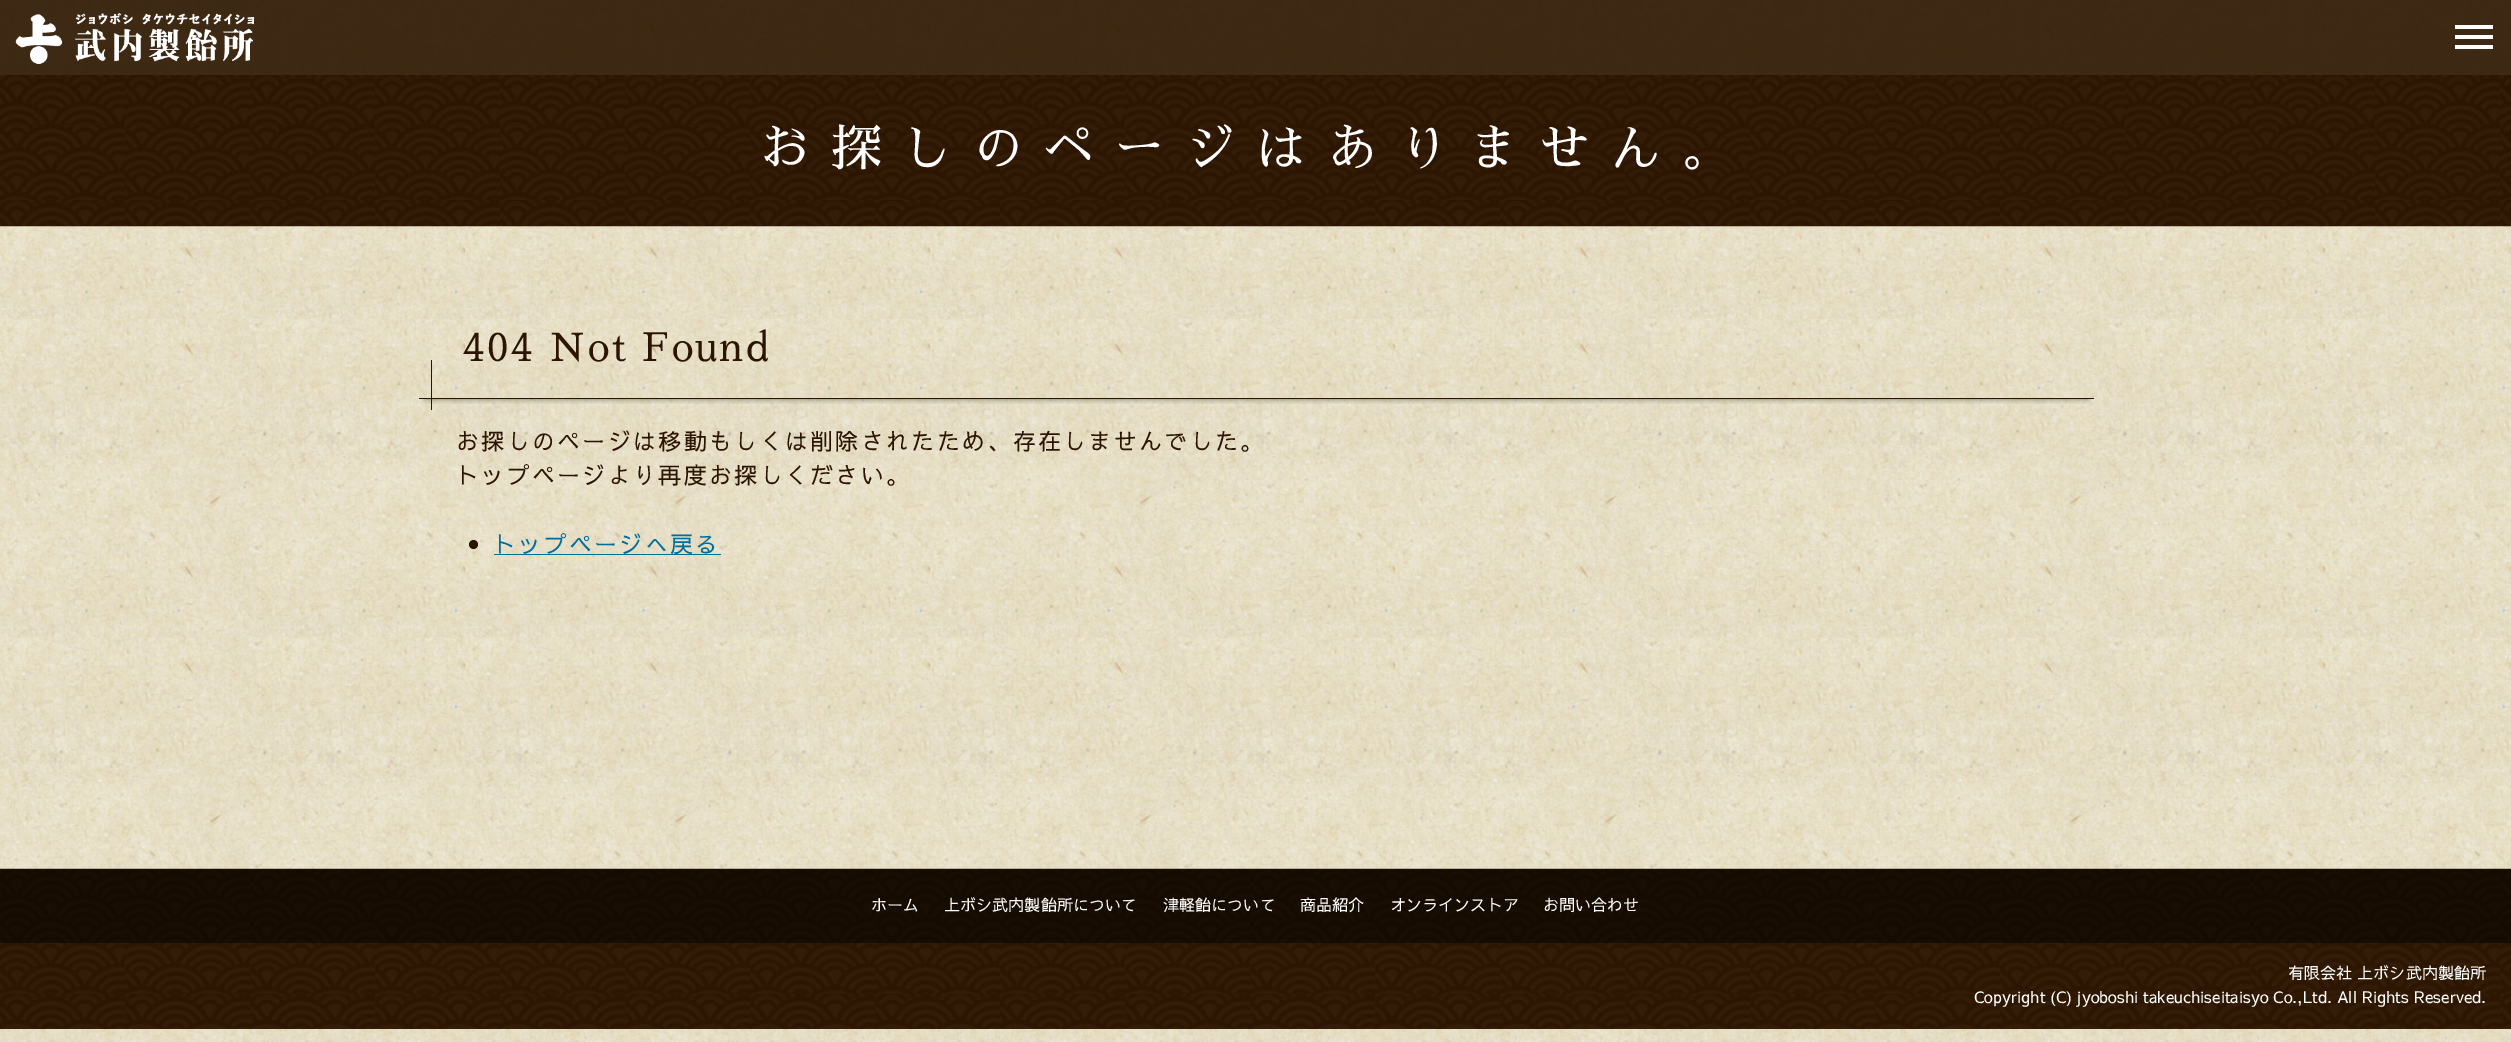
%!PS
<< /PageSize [2511 1042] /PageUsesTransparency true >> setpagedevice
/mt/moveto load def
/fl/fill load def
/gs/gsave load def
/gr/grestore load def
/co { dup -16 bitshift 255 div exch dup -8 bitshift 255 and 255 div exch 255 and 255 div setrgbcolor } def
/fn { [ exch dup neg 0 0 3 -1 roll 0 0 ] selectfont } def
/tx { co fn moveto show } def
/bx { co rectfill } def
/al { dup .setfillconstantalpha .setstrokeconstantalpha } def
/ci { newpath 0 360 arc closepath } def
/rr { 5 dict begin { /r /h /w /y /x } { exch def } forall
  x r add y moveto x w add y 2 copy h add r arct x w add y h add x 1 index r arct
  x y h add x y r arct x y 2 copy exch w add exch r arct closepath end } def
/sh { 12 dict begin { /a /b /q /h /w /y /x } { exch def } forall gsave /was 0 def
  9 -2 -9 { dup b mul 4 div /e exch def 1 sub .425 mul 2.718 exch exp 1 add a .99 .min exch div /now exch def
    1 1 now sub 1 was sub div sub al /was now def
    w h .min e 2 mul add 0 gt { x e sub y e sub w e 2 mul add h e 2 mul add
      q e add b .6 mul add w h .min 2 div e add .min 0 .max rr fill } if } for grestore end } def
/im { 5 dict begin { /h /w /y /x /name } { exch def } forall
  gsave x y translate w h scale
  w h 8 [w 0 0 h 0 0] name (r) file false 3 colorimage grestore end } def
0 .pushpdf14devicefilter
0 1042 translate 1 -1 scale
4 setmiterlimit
0 0 2511 1042 16#FFFFFF bx
(media/1.raw) 0 0 2511 1042 im
0.9 al
0 0 2511 75 16#2B1500 bx
1 al
(media/2.raw) 15 13 240 51 im
2455 25 38 4 16#FFFFFF bx
2455 35 38 4 16#FFFFFF bx
2455 45 38 4 16#FFFFFF bx
(media/3.raw) 0 75 2511 152 im
gs
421 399 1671 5 rectclip
16#000000 co
425 314 1663 85 0 3 .5 sh
gr
419 398 1675 1 16#2B1500 bx
431 360 1 50 16#2B1500 bx
473.5 544.5 4.5 ci fl
494 554 227 1 16#006D9B bx
(media/4.raw) 0 868 2511 161 im
0.5 al
0 869 2511 74 16#000000 bx
/SawarabiMincho-Regular 50.6 fn
1 al
16#FFFFFF co
760 166 mt 20.25 0 (お探しのページはありません。) ashow
/SawarabiMincho-Regular 39 fn
16#2B1500 co
462 361 mt 2.3 0 (404 Not Found) ashow
/SawarabiGothic-Regular 23 fn
456 450 mt 2.3 0 (お探しのページは移動もしくは削除されたため、存在しませんでした。) ashow
456 484 mt 2.3 0 (トップページより再度お探しください。) ashow
16#006D9B co
493 553 mt 2.3 0 (トップページへ戻る) ashow
(ホーム) 871 911 /SawarabiGothic-Regular 16.1 16#FFFFFF tx
(上ボシ武内製飴所について) 944 911 /SawarabiGothic-Regular 16.1 16#FFFFFF tx
(津軽飴について) 1163 911 /SawarabiGothic-Regular 16.1 16#FFFFFF tx
(商品紹介) 1300 911 /SawarabiGothic-Regular 16.1 16#FFFFFF tx
(オンラインストア) 1390 911 /SawarabiGothic-Regular 16.1 16#FFFFFF tx
(お問い合わせ) 1543 911 /SawarabiGothic-Regular 16.1 16#FFFFFF tx
(有限会社 上ボシ武内製飴所) 2288 979 /SawarabiGothic-Regular 16.1 16#FFFFFF tx
(Copyright \(C\) jyoboshi takeuchiseitaisyo Co.,Ltd. All Rights Reserved.) 1974 1003 /SawarabiGothic-Regular 16.1 16#FFFFFF tx
.poppdf14devicefilter showpage
